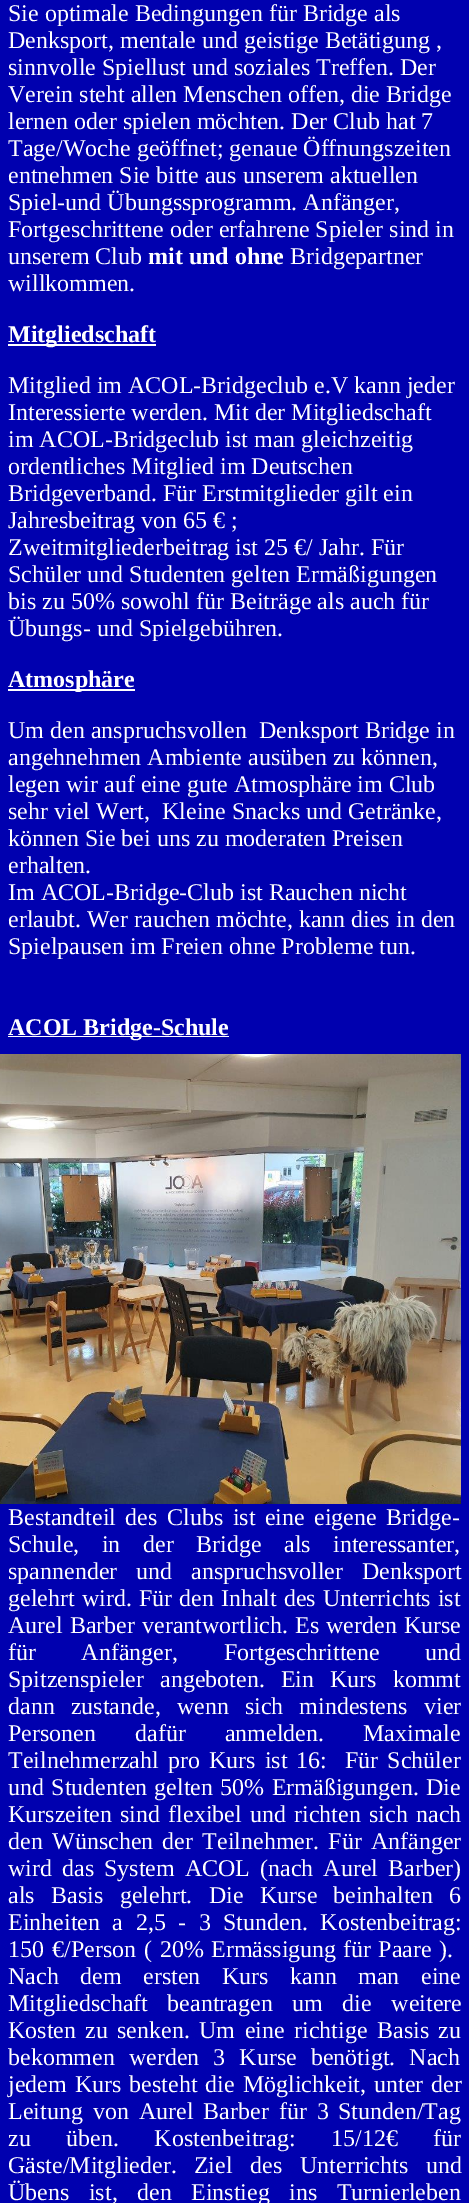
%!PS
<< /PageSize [469 2203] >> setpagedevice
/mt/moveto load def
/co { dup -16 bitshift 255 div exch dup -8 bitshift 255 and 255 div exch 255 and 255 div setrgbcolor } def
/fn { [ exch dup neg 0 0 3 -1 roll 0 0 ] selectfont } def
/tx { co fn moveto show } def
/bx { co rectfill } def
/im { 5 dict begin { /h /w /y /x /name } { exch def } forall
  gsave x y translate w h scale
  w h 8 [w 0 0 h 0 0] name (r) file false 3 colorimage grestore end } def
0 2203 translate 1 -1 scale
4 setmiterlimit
0 0 469 2203 16#0000AF bx
8 344 148 2 16#FFFFFF bx
8 689 127 2 16#FFFFFF bx
8 1036 221 1 16#FFFFFF bx
(media/1.raw) 0 1054 461 450 im
(Sie optimale Bedingungen für Bridge als) 8 21 /LiberationSerif-Regular 24 16#FFFFFF tx
(Denksport, mentale und geistige Betätigung ,) 8 48 /LiberationSerif-Regular 24 16#FFFFFF tx
(sinnvolle Spiellust und soziales Treffen. Der) 8 75 /LiberationSerif-Regular 24 16#FFFFFF tx
(Verein steht allen Menschen offen, die Bridge) 8 102 /LiberationSerif-Regular 24 16#FFFFFF tx
(lernen oder spielen möchten. Der Club hat 7) 8 129 /LiberationSerif-Regular 24 16#FFFFFF tx
(Tage/Woche geöffnet; genaue Öffnungszeiten) 8 156 /LiberationSerif-Regular 24 16#FFFFFF tx
(entnehmen Sie bitte aus unserem aktuellen) 8 183 /LiberationSerif-Regular 24 16#FFFFFF tx
(Spiel-und Übungssprogramm. Anfänger,) 8 210 /LiberationSerif-Regular 24 16#FFFFFF tx
(Fortgeschrittene oder erfahrene Spieler sind in) 8 237 /LiberationSerif-Regular 24 16#FFFFFF tx
(unserem Club) 8 264 /LiberationSerif-Regular 24 16#FFFFFF tx
(mit und ohne) 148 264 /LiberationSerif-Bold 24 16#FFFFFF tx
(Bridgepartner) 290 264 /LiberationSerif-Regular 24 16#FFFFFF tx
(willkommen.) 8 291 /LiberationSerif-Regular 24 16#FFFFFF tx
(Mitgliedschaft) 8 342 /LiberationSerif-Bold 24 16#FFFFFF tx
(Mitglied im ACOL-Bridgeclub e.V kann jeder) 8 393 /LiberationSerif-Regular 24 16#FFFFFF tx
(Interessierte werden. Mit der Mitgliedschaft) 8 420 /LiberationSerif-Regular 24 16#FFFFFF tx
(im ACOL-Bridgeclub ist man gleichzeitig) 8 447 /LiberationSerif-Regular 24 16#FFFFFF tx
(ordentliches Mitglied im Deutschen) 8 474 /LiberationSerif-Regular 24 16#FFFFFF tx
(Bridgeverband. Für Erstmitglieder gilt ein) 8 501 /LiberationSerif-Regular 24 16#FFFFFF tx
(Jahresbeitrag von 65 € ;) 8 528 /LiberationSerif-Regular 24 16#FFFFFF tx
(Zweitmitgliederbeitrag ist 25 €/ Jahr. Für) 8 555 /LiberationSerif-Regular 24 16#FFFFFF tx
(Schüler und Studenten gelten Ermäßigungen) 8 582 /LiberationSerif-Regular 24 16#FFFFFF tx
(bis zu 50% sowohl für Beiträge als auch für) 8 609 /LiberationSerif-Regular 24 16#FFFFFF tx
(Übungs- und Spielgebühren.) 8 636 /LiberationSerif-Regular 24 16#FFFFFF tx
(Atmosphäre) 8 687 /LiberationSerif-Bold 24 16#FFFFFF tx
(Um den anspruchsvollen  Denksport Bridge in) 8 738 /LiberationSerif-Regular 24 16#FFFFFF tx
(angehnehmen Ambiente ausüben zu können,) 8 765 /LiberationSerif-Regular 24 16#FFFFFF tx
(legen wir auf eine gute Atmosphäre im Club) 8 792 /LiberationSerif-Regular 24 16#FFFFFF tx
(sehr viel Wert,  Kleine Snacks und Getränke,) 8 819 /LiberationSerif-Regular 24 16#FFFFFF tx
(können Sie bei uns zu moderaten Preisen) 8 846 /LiberationSerif-Regular 24 16#FFFFFF tx
(erhalten.) 8 873 /LiberationSerif-Regular 24 16#FFFFFF tx
(Im ACOL-Bridge-Club ist Rauchen nicht) 8 900 /LiberationSerif-Regular 24 16#FFFFFF tx
(erlaubt. Wer rauchen möchte, kann dies in den) 8 927 /LiberationSerif-Regular 24 16#FFFFFF tx
(Spielpausen im Freien ohne Probleme tun.) 8 954 /LiberationSerif-Regular 24 16#FFFFFF tx
(ACOL Bridge-Schule) 8 1035 /LiberationSerif-Bold 24 16#FFFFFF tx
/LiberationSerif-Regular 24 fn
8 1525 mt 3.5 0 32 (Bestandteil des) widthshow
167 1525 mt 3.5 0 32 (Clubs ist eine eigene Bridge-) widthshow
8 1552 mt 16.5 0 32 (Schule, in der Bridge als interessanter,) widthshow
(spannender) 8 1579 /LiberationSerif-Regular 24 16#FFFFFF tx
136 1579 mt 13 0 32 (und anspruchsvoller Denksport) widthshow
8 1606 mt 1 0 32 (gelehrt wird. Für den Inhalt des Unterrichts ist) widthshow
8 1633 mt 1 0 32 (Aurel Barber verantwortlich. Es werden Kurse) widthshow
8 1660 mt 39.5 0 32 (für Anfänger, Fortgeschrittene und) widthshow
8 1687 mt 10 0 32 (Spitzenspieler angeboten. Ein Kurs kommt) widthshow
8 1714 mt 10 0 32 (dann zustande, wenn sich mindestens) widthshow
(vier) 424 1714 /LiberationSerif-Regular 24 16#FFFFFF tx
8 1741 mt 33 0 32 (Personen dafür anmelden. Maximale) widthshow
8 1768 mt 3 0 32 (Teilnehmerzahl pro) widthshow
209 1768 mt 3 0 32 (Kurs ist 16:  Für Schüler) widthshow
8 1795 mt 1.25 0 32 (und Studenten gelten 50% Ermäßigungen. Die) widthshow
(Kurszeiten) 8 1822 /LiberationSerif-Regular 24 16#FFFFFF tx
120 1822 mt 2.25 0 32 (sind flexibel und richten sich nach) widthshow
8 1849 mt 3.25 0 32 (den Wünschen der Teilnehmer. Für Anfänger) widthshow
8 1876 mt 4 0 32 (wird das System ACOL \(nach Aurel Barber\)) widthshow
8 1903 mt 10.5 0 32 (als Basis gelehrt. Die Kurse) widthshow
333 1903 mt 10.5 0 32 (beinhalten 6) widthshow
8 1930 mt 6.5 0 32 (Einheiten a 2,5 - 3 Stunden. Kostenbeitrag:) widthshow
8 1957 mt 2 0 32 (150 €/Person \( 20%) widthshow
211 1957 mt 1 0 32 (Ermässigung für Paare \).) widthshow
8 1984 mt 15.5 0 32 (Nach dem) widthshow
143 1984 mt 15.5 0 32 (ersten Kurs kann man eine) widthshow
8 2011 mt 13.5 0 32 (Mitgliedschaft beantragen um die weitere) widthshow
8 2038 mt 3.5 0 32 (Kosten zu) widthshow
117 2038 mt 3.5 0 32 (senken. Um eine richtige Basis zu) widthshow
8 2065 mt 8 0 32 (bekommen werden 3 Kurse benötigt. Nach) widthshow
8 2092 mt 2 0 32 (jedem Kurs besteht die Möglichkeit, unter der) widthshow
8 2119 mt 4 0 32 (Leitung von Aurel Barber für 3) widthshow
(Stunden/Tag) 338 2119 /LiberationSerif-Regular 24 16#FFFFFF tx
8 2146 mt 29.5 0 32 (zu üben. Kostenbeitrag: 15/12€ für) widthshow
8 2173 mt 11 0 32 (Gäste/Mitglieder. Ziel) widthshow
250 2173 mt 12 0 32 (des Unterrichts und) widthshow
8 2200 mt 13.5 0 32 (Übens ist, den Einstieg ins Turnierleben) widthshow
showpage
